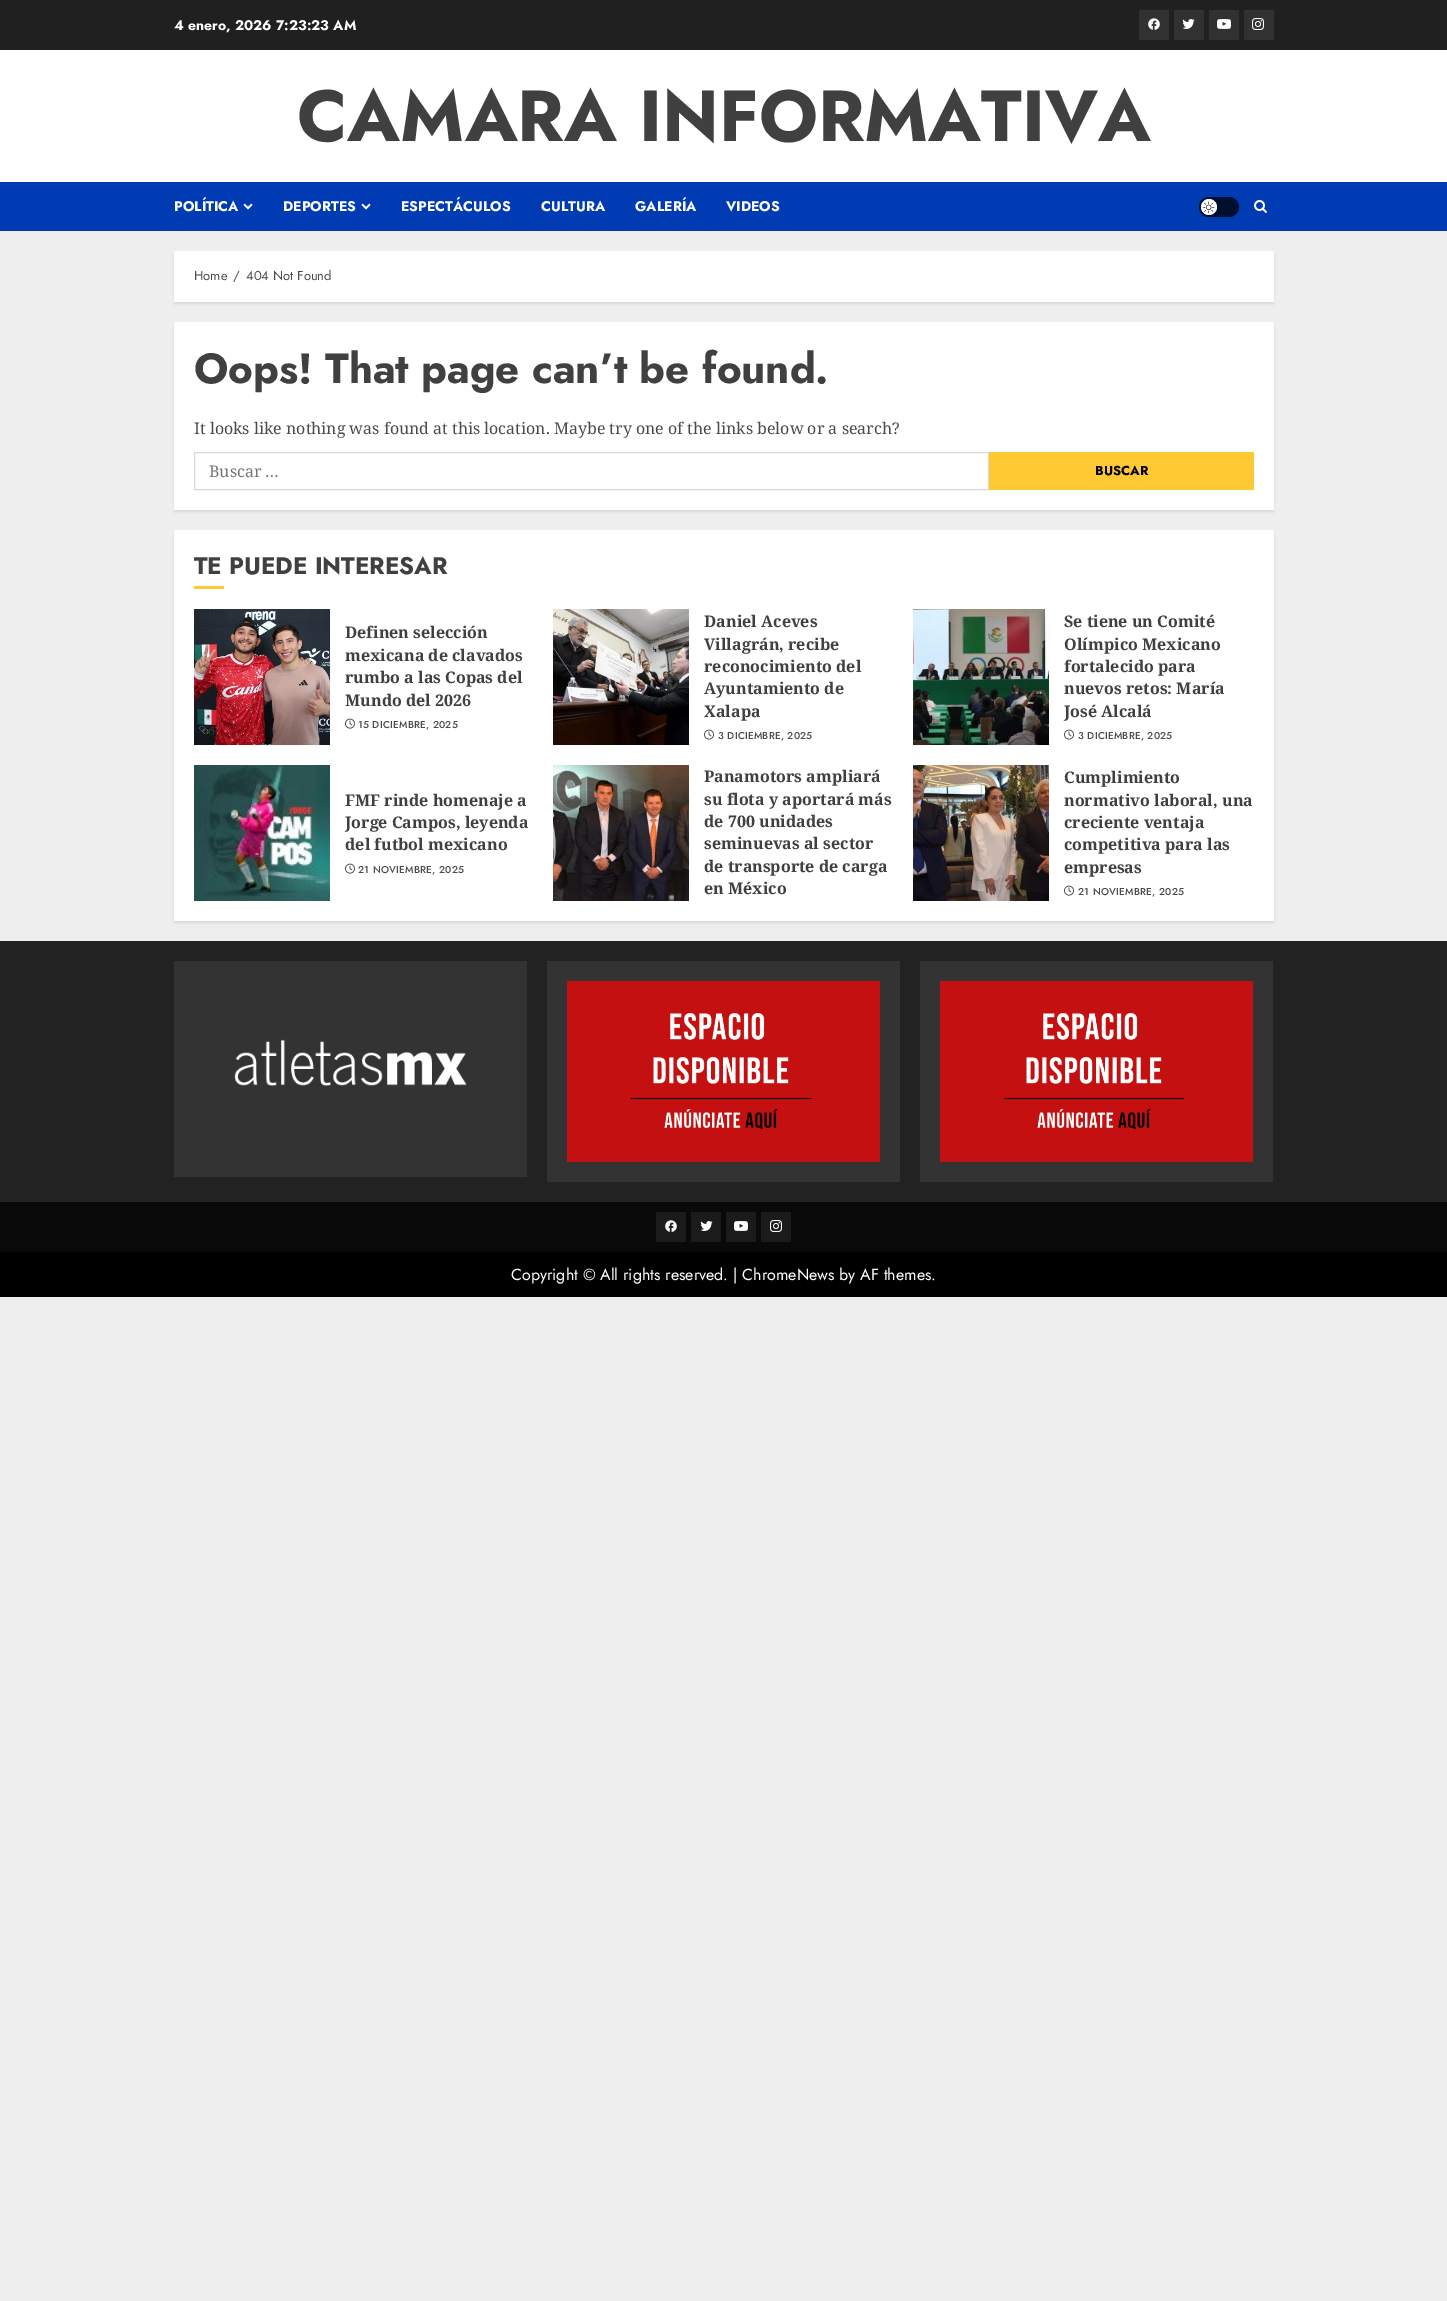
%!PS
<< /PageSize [1447 2301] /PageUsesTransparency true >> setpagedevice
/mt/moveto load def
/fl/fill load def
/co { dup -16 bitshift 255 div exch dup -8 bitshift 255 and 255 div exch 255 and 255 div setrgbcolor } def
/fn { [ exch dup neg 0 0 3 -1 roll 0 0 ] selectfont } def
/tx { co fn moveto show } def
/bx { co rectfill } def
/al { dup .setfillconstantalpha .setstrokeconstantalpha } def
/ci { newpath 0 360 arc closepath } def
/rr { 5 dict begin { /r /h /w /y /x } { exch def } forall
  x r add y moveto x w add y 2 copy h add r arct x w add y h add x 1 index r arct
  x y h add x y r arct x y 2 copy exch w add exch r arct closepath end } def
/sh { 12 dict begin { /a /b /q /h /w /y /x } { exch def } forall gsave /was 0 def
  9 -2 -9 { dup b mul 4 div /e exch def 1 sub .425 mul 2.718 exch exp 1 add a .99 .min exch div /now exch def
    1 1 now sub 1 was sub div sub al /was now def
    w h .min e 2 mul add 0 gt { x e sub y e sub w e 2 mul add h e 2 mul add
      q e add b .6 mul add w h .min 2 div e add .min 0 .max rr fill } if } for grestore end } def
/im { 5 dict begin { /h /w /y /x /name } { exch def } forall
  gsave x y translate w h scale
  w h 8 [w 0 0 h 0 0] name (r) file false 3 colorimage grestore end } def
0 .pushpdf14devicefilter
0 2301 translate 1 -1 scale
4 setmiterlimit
0 0 1447 2301 16#EEEEEE bx
0 0 1447 50 16#202020 bx
1139 10 30 30 16#313131 bx
(media/1.raw) 1148 18 12 12 im
1174 10 30 30 16#313131 bx
(media/2.raw) 1182 19 13 10 im
1209 10 30 30 16#313131 bx
(media/3.raw) 1217 19 14 10 im
1244 10 30 30 16#313131 bx
(media/4.raw) 1252 18 12 12 im
0 50 1447 132 16#FFFFFF bx
0 182 1447 49 16#003BB3 bx
(media/5.raw) 243 203 10 7 im
(media/5.raw) 361 203 10 7 im
16#000F2D co
1199 197 40 20 10 rr fl
16#FFFFFF co
1209 207 8 ci fl
(media/6.raw) 1203 201 12 12 im
(media/7.raw) 1254 200 13 13 im
16#000000 co
174 253 1100 51 0 1 .08 sh
174 251 1100 51 16#FFFFFF bx
16#000000 co
174 324 1100 188 0 1 .08 sh
174 322 1100 188 16#FFFFFF bx
16#D9D9D9 co
194.5 452.5 794 37 rectstroke
989 452 265 38 16#FFC934 bx
16#000000 co
174 532 1100 391 0 1 .08 sh
174 530 1100 391 16#FFFFFF bx
194 586 30 3 16#FFC934 bx
(media/8.raw) 194 609 136 136 im
(media/9.raw) 345 718 10 11 im
(media/10.raw) 553 609 136 136 im
(media/9.raw) 704 729 10 11 im
(media/11.raw) 913 609 136 136 im
(media/9.raw) 1064 729 10 11 im
(media/12.raw) 194 765 136 136 im
(media/9.raw) 345 863 10 11 im
(media/13.raw) 553 765 136 136 im
(media/14.raw) 913 765 136 136 im
(media/9.raw) 1064 885 10 11 im
0 941 1447 261 16#222222 bx
174 961 353 216 16#333333 bx
(media/15.raw) 234 1039 233 47 im
547 961 353 221 16#333333 bx
(media/16.raw) 567 981 313 181 im
920 961 353 221 16#333333 bx
(media/16.raw) 940 981 313 181 im
0 1202 1447 50 16#090909 bx
656 1212 30 30 16#1B1B1B bx
(media/17.raw) 665 1220 12 12 im
691 1212 30 30 16#1B1B1B bx
(media/18.raw) 700 1221 13 10 im
726 1212 30 30 16#1B1B1B bx
(media/19.raw) 734 1221 14 10 im
761 1212 30 30 16#1B1B1B bx
(media/20.raw) 770 1220 12 12 im
0 1252 1447 45 16#000000 bx
(4 enero, 2026 7:23:23 AM) 174 30 /Jost-Bold 14 16#FFFFFF tx
(CAMARA INFORMATIVA) 297 141 /Jost-Bold 72 16#404040 tx
(POLÍTICA) 174 211 /Jost-Bold 14 16#FFFFFF tx
(DEPORTES) 283 211 /Jost-Bold 14 16#FFFFFF tx
(ESPECTÁCULOS) 401 211 /Jost-Bold 14 16#FFFFFF tx
(CULTURA) 541 211 /Jost-Bold 14 16#FFFFFF tx
(GALERÍA) 635 211 /Jost-Bold 14 16#FFFFFF tx
(VIDEOS) 726 211 /Jost-Bold 14 16#FFFFFF tx
(Home) 194 280 /Jost-Regular 13 16#4A4A4A tx
(/) 233 280 /Jost-Regular 13 16#4A4A4A tx
(404 Not Found) 246 280 /Jost-Regular 13 16#4A4A4A tx
(Oops! That page can’t be found.) 194 383 /Jost-Bold 42 16#404040 tx
(It looks like nothing was found at this location. Maybe try one of the links below or a search?) 194 434 /NotoSerif-Regular 16 16#4A4A4A tx
(Buscar …) 209 477 /NotoSerif-Regular 16 16#757575 tx
(BUSCAR) 1095 475 /Jost-Bold 13 16#000000 tx
(TE PUEDE INTERESAR) 194 574 /Jost-Bold 24 16#404040 tx
(Definen selección) 345 638 /NotoSerif-Bold 16 16#404040 tx
(mexicana de clavados) 345 661 /NotoSerif-Bold 16 16#404040 tx
(rumbo a las Copas del) 345 683 /NotoSerif-Bold 16 16#404040 tx
(Mundo del 2026) 345 706 /NotoSerif-Bold 16 16#404040 tx
/Jost-Medium 10 fn
16#4A4A4A co
358 728 mt .25 0 (15 DICIEMBRE, 2025) ashow
(Daniel Aceves) 704 627 /NotoSerif-Bold 16 16#404040 tx
(Villagrán, recibe) 704 650 /NotoSerif-Bold 16 16#404040 tx
(reconocimiento del) 704 672 /NotoSerif-Bold 16 16#404040 tx
(Ayuntamiento de) 704 694 /NotoSerif-Bold 16 16#404040 tx
(Xalapa) 704 717 /NotoSerif-Bold 16 16#404040 tx
/Jost-Medium 10 fn
16#4A4A4A co
718 739 mt .25 0 (3 DICIEMBRE, 2025) ashow
(Se tiene un Comité) 1064 627 /NotoSerif-Bold 16 16#404040 tx
(Olímpico Mexicano) 1064 650 /NotoSerif-Bold 16 16#404040 tx
(fortalecido para) 1064 672 /NotoSerif-Bold 16 16#404040 tx
(nuevos retos: María) 1064 694 /NotoSerif-Bold 16 16#404040 tx
(José Alcalá) 1064 717 /NotoSerif-Bold 16 16#404040 tx
/Jost-Medium 10 fn
16#4A4A4A co
1078 739 mt .25 0 (3 DICIEMBRE, 2025) ashow
(FMF rinde homenaje a) 345 806 /NotoSerif-Bold 16 16#404040 tx
(Jorge Campos, leyenda) 345 828 /NotoSerif-Bold 16 16#404040 tx
(del futbol mexicano) 345 850 /NotoSerif-Bold 16 16#404040 tx
/Jost-Medium 10 fn
16#4A4A4A co
358 873 mt .25 0 (21 NOVIEMBRE, 2025) ashow
(Panamotors ampliará) 704 782 /NotoSerif-Bold 16 16#404040 tx
(su flota y aportará más) 704 805 /NotoSerif-Bold 16 16#404040 tx
(de 700 unidades) 704 827 /NotoSerif-Bold 16 16#404040 tx
(seminuevas al sector) 704 849 /NotoSerif-Bold 16 16#404040 tx
(de transporte de carga) 704 872 /NotoSerif-Bold 16 16#404040 tx
(en México) 704 894 /NotoSerif-Bold 16 16#404040 tx
(Cumplimiento) 1064 783 /NotoSerif-Bold 16 16#404040 tx
(normativo laboral, una) 1064 806 /NotoSerif-Bold 16 16#404040 tx
(creciente ventaja) 1064 828 /NotoSerif-Bold 16 16#404040 tx
(competitiva para las) 1064 850 /NotoSerif-Bold 16 16#404040 tx
(empresas) 1064 873 /NotoSerif-Bold 16 16#404040 tx
/Jost-Medium 10 fn
16#4A4A4A co
1078 895 mt .25 0 (21 NOVIEMBRE, 2025) ashow
(Copyright © All rights reserved. | ChromeNews by AF themes.) 511 1280 /Jost-Regular 16 16#FFFFFF tx
.poppdf14devicefilter showpage
